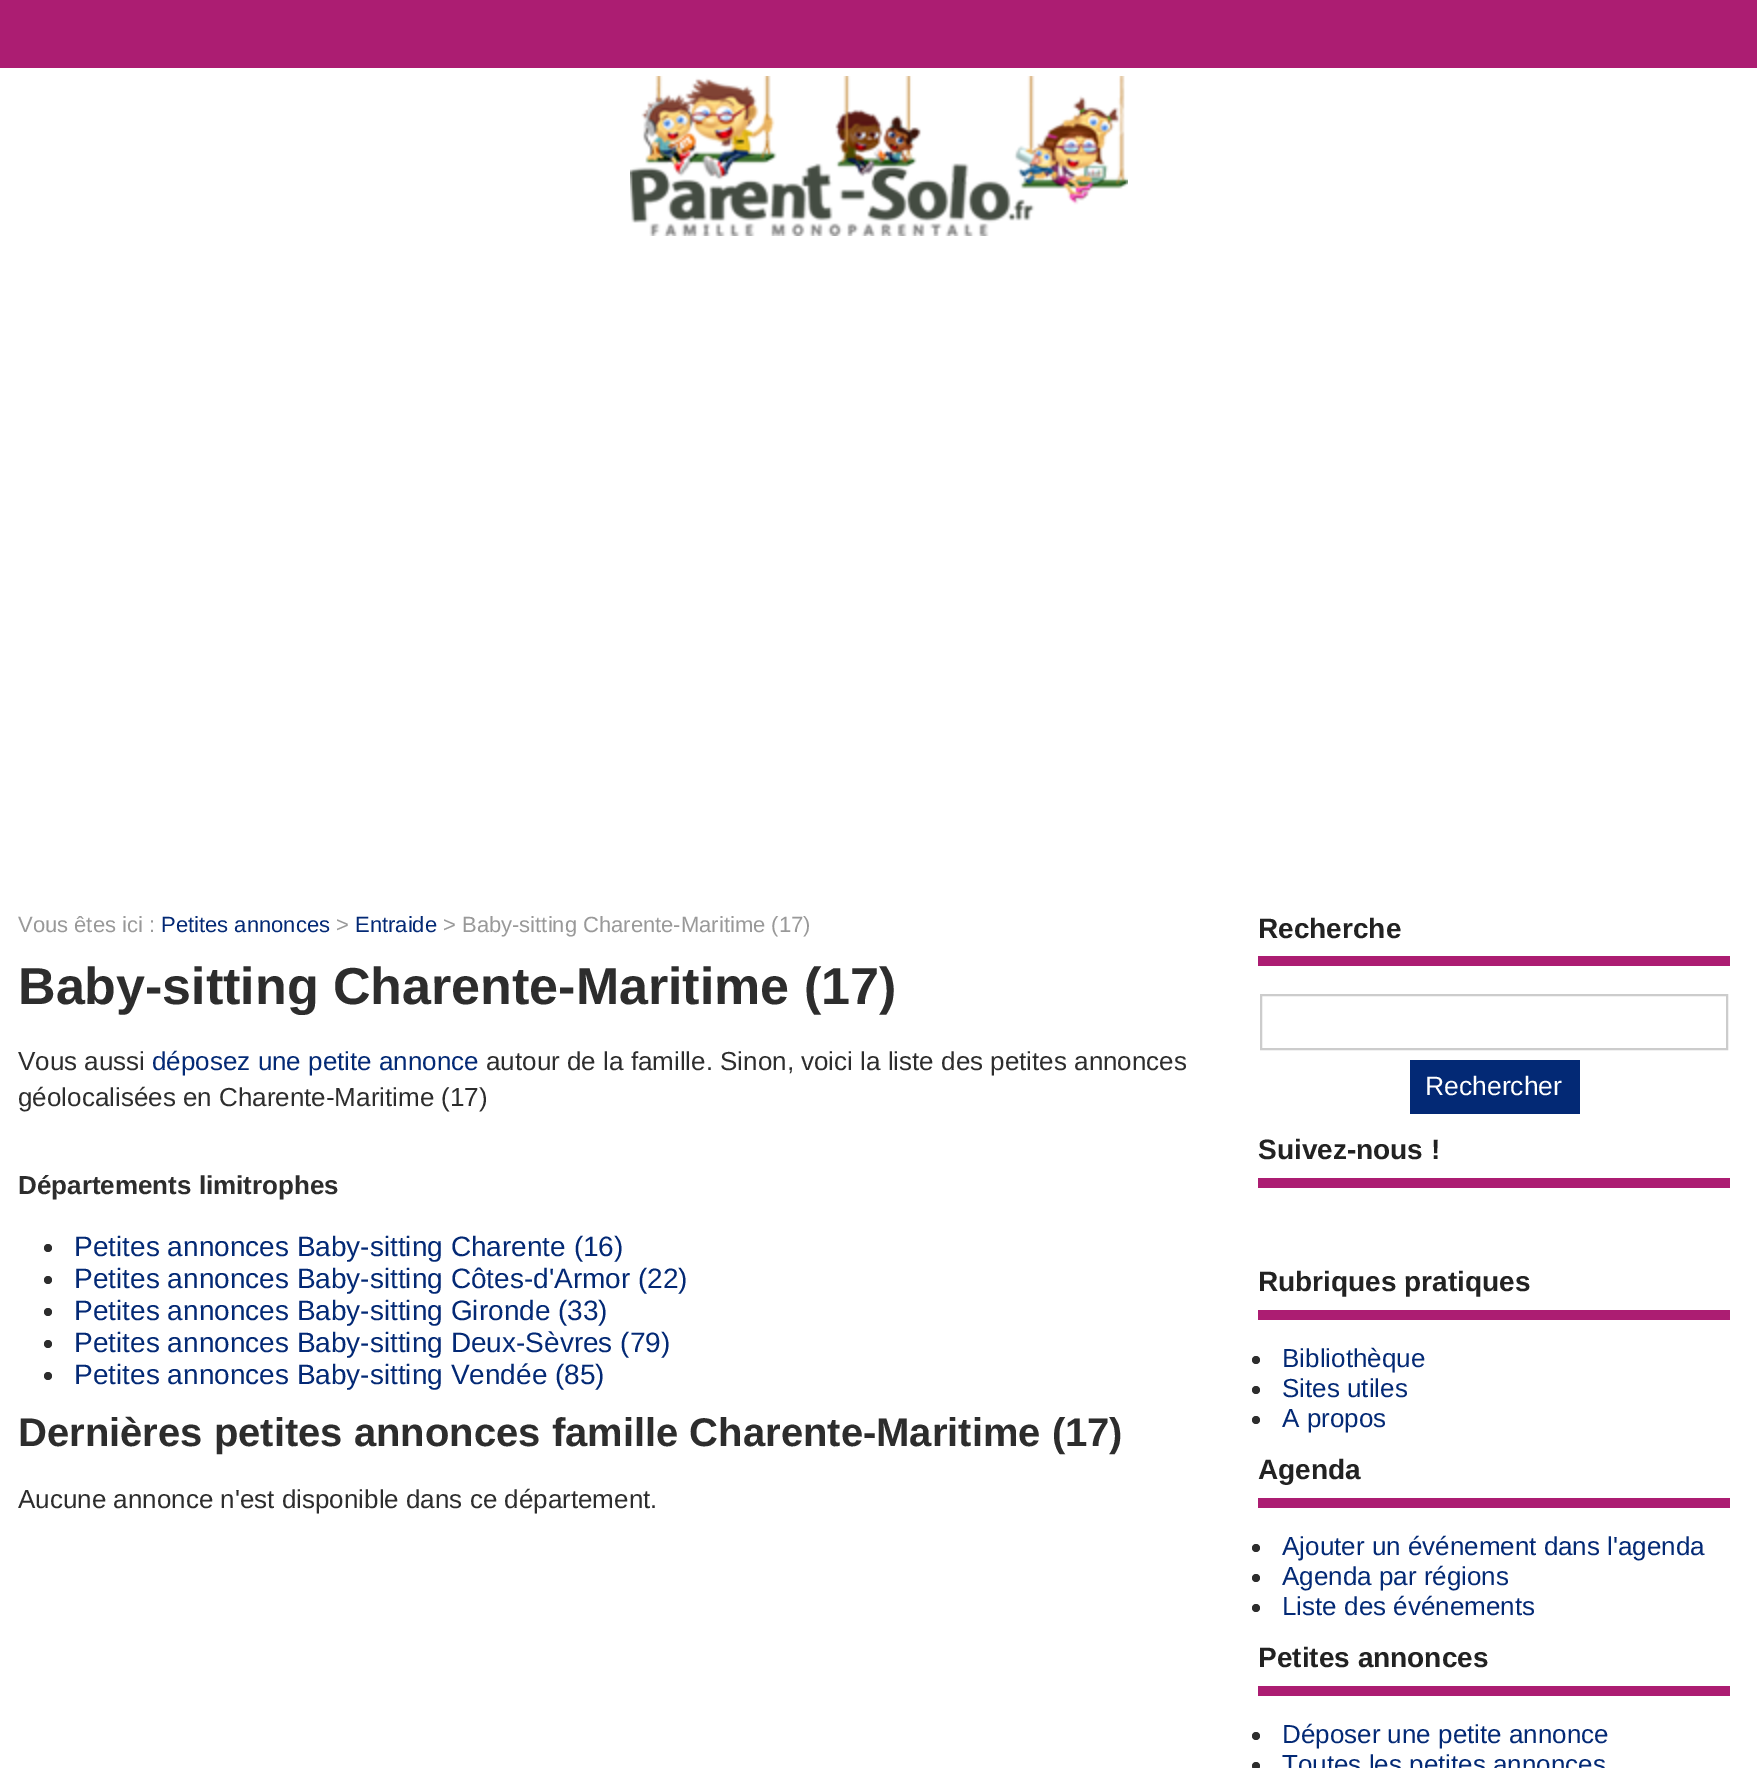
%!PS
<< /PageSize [1757 1768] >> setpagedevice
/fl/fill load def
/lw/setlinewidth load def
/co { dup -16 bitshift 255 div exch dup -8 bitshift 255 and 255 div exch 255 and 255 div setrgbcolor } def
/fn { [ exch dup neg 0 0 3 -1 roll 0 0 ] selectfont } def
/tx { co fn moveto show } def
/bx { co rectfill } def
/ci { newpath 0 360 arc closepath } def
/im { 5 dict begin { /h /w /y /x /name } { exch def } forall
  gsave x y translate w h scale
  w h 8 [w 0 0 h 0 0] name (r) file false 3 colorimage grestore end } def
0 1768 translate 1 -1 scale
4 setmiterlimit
0 0 1757 1768 16#FFFFFF bx
0 0 1757 68 16#AC1D72 bx
(media/1.raw) 630 76 498 160 im
16#2D2D2D co
48 1248 4 ci fl
48 1280 4 ci fl
48 1312 4 ci fl
48 1344 4 ci fl
48 1376 4 ci fl
1258 956 472 10 16#AC1D72 bx
16#CCCCCC co
2 lw
1261 995 466 54 rectstroke
1410 1060 170 54 16#032975 bx
1258 1178 472 10 16#AC1D72 bx
1258 1310 472 10 16#AC1D72 bx
16#2D2D2D co
1256 1360 4 ci fl
1256 1390 4 ci fl
1256 1420 4 ci fl
1258 1498 472 10 16#AC1D72 bx
16#2D2D2D co
1256 1548 4 ci fl
1256 1578 4 ci fl
1256 1608 4 ci fl
1258 1686 472 10 16#AC1D72 bx
16#2D2D2D co
1256 1736 4 ci fl
1256 1766 4 ci fl
(Vous êtes ici :) 18 932 /LiberationSans-Regular 22 16#999999 tx
(Petites annonces) 161 932 /LiberationSans-Regular 22 16#032975 tx
(>) 336 932 /LiberationSans-Regular 22 16#999999 tx
(Entraide) 355 932 /LiberationSans-Regular 22 16#032975 tx
(> Baby-sitting Charente-Maritime \(17\)) 443 932 /LiberationSans-Regular 22 16#999999 tx
(Baby-sitting Charente-Maritime \(17\)) 18 1004 /LiberationSans-Bold 52 16#2D2D2D tx
(Vous aussi) 18 1070 /LiberationSans-Regular 26 16#2D2D2D tx
(déposez une petite annonce) 152 1070 /LiberationSans-Regular 26 16#032975 tx
(autour de la famille. Sinon, voici la liste des petites annonces) 486 1070 /LiberationSans-Regular 26 16#2D2D2D tx
(géolocalisées en Charente-Maritime \(17\)) 18 1106 /LiberationSans-Regular 26 16#2D2D2D tx
(Départements limitrophes) 18 1194 /LiberationSans-Bold 26 16#2D2D2D tx
(Petites annonces Baby-sitting Charente \(16\)) 74 1256 /LiberationSans-Regular 28 16#032975 tx
(Petites annonces Baby-sitting Côtes-d'Armor \(22\)) 74 1288 /LiberationSans-Regular 28 16#032975 tx
(Petites annonces Baby-sitting Gironde \(33\)) 74 1320 /LiberationSans-Regular 28 16#032975 tx
(Petites annonces Baby-sitting Deux-Sèvres \(79\)) 74 1352 /LiberationSans-Regular 28 16#032975 tx
(Petites annonces Baby-sitting Vendée \(85\)) 74 1384 /LiberationSans-Regular 28 16#032975 tx
(Dernières petites annonces famille Charente-Maritime \(17\)) 18 1446 /LiberationSans-Bold 40 16#2D2D2D tx
(Aucune annonce n'est disponible dans ce département.) 18 1508 /LiberationSans-Regular 26 16#2D2D2D tx
(Recherche) 1258 938 /LiberationSans-Bold 28 16#222222 tx
(Rechercher) 1425 1095 /LiberationSans-Regular 26.5 16#FFFFFF tx
(Suivez-nous !) 1258 1159 /LiberationSans-Bold 28 16#222222 tx
(Rubriques pratiques) 1258 1291 /LiberationSans-Bold 28 16#222222 tx
(Bibliothèque) 1282 1367 /LiberationSans-Regular 26 16#032975 tx
(Sites utiles) 1282 1397 /LiberationSans-Regular 26 16#032975 tx
(A propos) 1282 1427 /LiberationSans-Regular 26 16#032975 tx
(Agenda) 1258 1479 /LiberationSans-Bold 28 16#222222 tx
(Ajouter un événement dans l'agenda) 1282 1555 /LiberationSans-Regular 26 16#032975 tx
(Agenda par régions) 1282 1585 /LiberationSans-Regular 26 16#032975 tx
(Liste des événements) 1282 1615 /LiberationSans-Regular 26 16#032975 tx
(Petites annonces) 1258 1667 /LiberationSans-Bold 28 16#222222 tx
(Déposer une petite annonce) 1282 1743 /LiberationSans-Regular 26 16#032975 tx
(Toutes les petites annonces) 1282 1773 /LiberationSans-Regular 26 16#032975 tx
showpage
